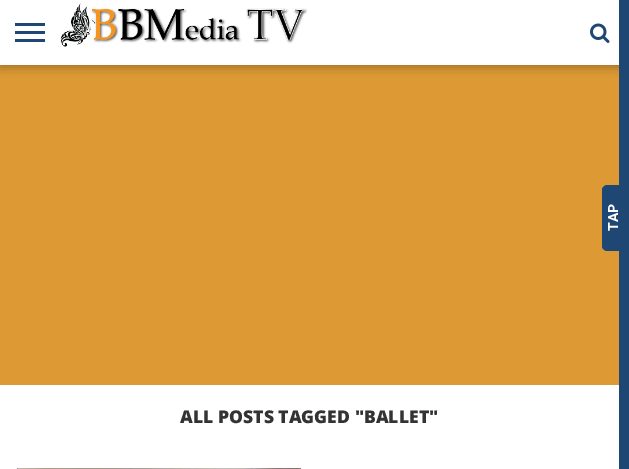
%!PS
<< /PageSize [629 469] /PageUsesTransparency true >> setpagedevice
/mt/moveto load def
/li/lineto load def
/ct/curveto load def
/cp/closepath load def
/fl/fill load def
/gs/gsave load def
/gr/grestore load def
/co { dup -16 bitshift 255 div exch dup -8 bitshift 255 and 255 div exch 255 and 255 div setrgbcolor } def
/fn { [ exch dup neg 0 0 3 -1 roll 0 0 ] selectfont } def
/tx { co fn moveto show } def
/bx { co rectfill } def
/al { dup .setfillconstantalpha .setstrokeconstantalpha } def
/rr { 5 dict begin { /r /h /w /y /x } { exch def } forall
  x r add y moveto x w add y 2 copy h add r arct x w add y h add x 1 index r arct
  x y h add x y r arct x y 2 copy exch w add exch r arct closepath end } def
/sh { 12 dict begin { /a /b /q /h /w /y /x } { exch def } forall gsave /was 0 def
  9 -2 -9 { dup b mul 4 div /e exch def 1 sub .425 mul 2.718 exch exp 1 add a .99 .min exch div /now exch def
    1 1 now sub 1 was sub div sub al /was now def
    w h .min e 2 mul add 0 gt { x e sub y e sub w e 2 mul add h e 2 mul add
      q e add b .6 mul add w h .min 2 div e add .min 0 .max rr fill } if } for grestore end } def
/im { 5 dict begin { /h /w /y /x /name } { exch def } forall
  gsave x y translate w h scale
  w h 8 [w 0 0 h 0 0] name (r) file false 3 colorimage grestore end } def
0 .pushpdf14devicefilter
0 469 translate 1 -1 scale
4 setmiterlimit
0 0 629 469 16#DD9933 bx
16#000000 co
0 2 629 65 0 5 .3 sh
0 0 619 65 16#FFFFFF bx
15 23 30 3 16#1F4773 bx
15 31 30 3 16#1F4773 bx
15 39 30 3 16#1F4773 bx
(media/1.raw) 60 3 248 44 im
(media/2.raw) 590 23 20 20 im
619 0 10 469 16#1F4773 bx
602 246 mt 602 190 li 602 187 605 185 607 185 ct 621 185 li 624 185 626 187 626 190 ct 626 246 li 626 249 624 251 621 251 ct 607 251 li 605 251 602 249 602 246 ct cp fl
0 385 619 84 16#FFFFFF bx
17 468 284 1 16#000000 bx
(media/3.raw) 17 468 284 1 im
/Roboto-Bold 14 fn
16#FFFFFF co
gs 618 231 translate -90 rotate 0 0 mt (TAP) show gr
(ALL POSTS TAGGED "BALLET") 180 423 /OpenSans-ExtraBold 17.6 16#333333 tx
.poppdf14devicefilter showpage
